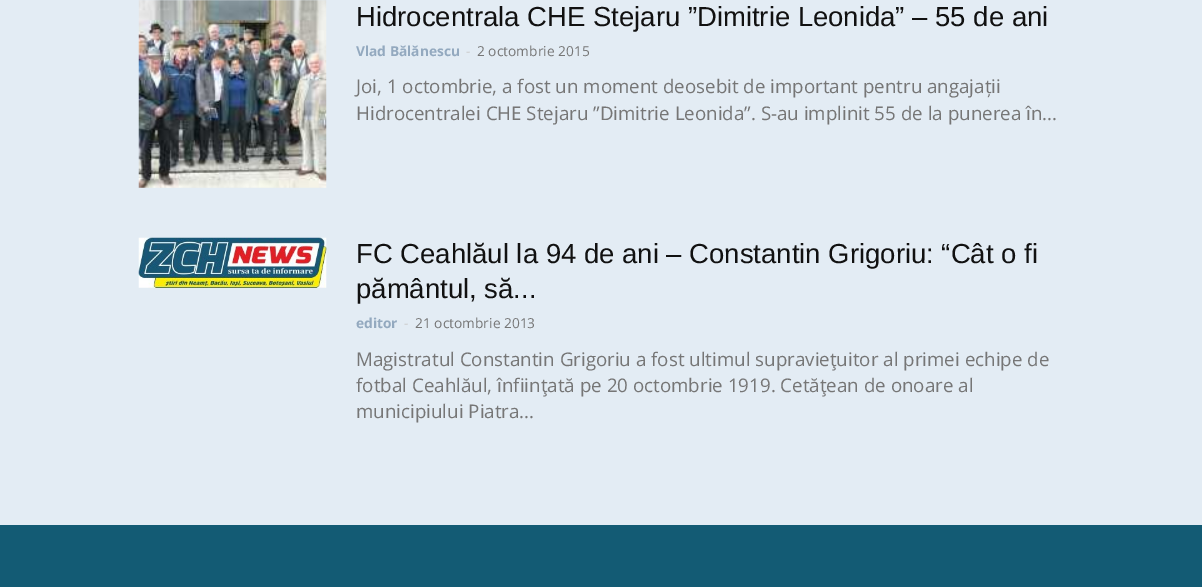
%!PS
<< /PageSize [1202 587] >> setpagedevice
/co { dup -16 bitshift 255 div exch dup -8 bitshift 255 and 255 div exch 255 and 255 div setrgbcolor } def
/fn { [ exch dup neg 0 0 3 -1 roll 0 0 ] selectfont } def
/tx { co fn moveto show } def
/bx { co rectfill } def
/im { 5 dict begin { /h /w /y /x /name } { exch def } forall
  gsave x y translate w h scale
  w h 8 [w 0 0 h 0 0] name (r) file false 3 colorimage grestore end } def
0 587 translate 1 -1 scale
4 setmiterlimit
0 0 1202 587 16#E3ECF4 bx
(media/1.raw) 138 0 189 188 im
(media/2.raw) 138 237 189 51 im
0 525 1202 62 16#135B74 bx
(Hidrocentrala CHE Stejaru ”Dimitrie Leonida” – 55 de ani) 356 26 /LiberationSans-Regular 27.5 16#111111 tx
(Vlad Bălănescu) 356 56 /OpenSans-Bold 13.75 16#93A9BF tx
(-) 466 56 /OpenSans-Regular 13.75 16#CCCCCC tx
(2 octombrie 2015) 477 56 /OpenSans-Regular 13.75 16#767676 tx
(Joi, 1 octombrie, a fost un moment deosebit de important pentru angajații) 356 93 /OpenSans-Regular 18.75 16#767676 tx
(Hidrocentralei CHE Stejaru ”Dimitrie Leonida”. S-au implinit 55 de la punerea în...) 356 120 /OpenSans-Regular 18.75 16#767676 tx
(FC Ceahlăul la 94 de ani – Constantin Grigoriu: “Cât o fi) 356 263 /LiberationSans-Regular 27.5 16#111111 tx
(pământul, să...) 356 298 /LiberationSans-Regular 27.5 16#111111 tx
(editor) 356 328 /OpenSans-Bold 13.75 16#93A9BF tx
(-) 404 328 /OpenSans-Regular 13.75 16#CCCCCC tx
(21 octombrie 2013) 415 328 /OpenSans-Regular 13.75 16#767676 tx
(Magistratul Constantin Grigoriu a fost ultimul supravieţuitor al primei echipe de) 356 366 /OpenSans-Regular 18.75 16#767676 tx
(fotbal Ceahlăul, înfiinţată pe 20 octombrie 1919. Cetăţean de onoare al) 356 392 /OpenSans-Regular 18.75 16#767676 tx
(municipiului Piatra...) 356 418 /OpenSans-Regular 18.75 16#767676 tx
showpage
